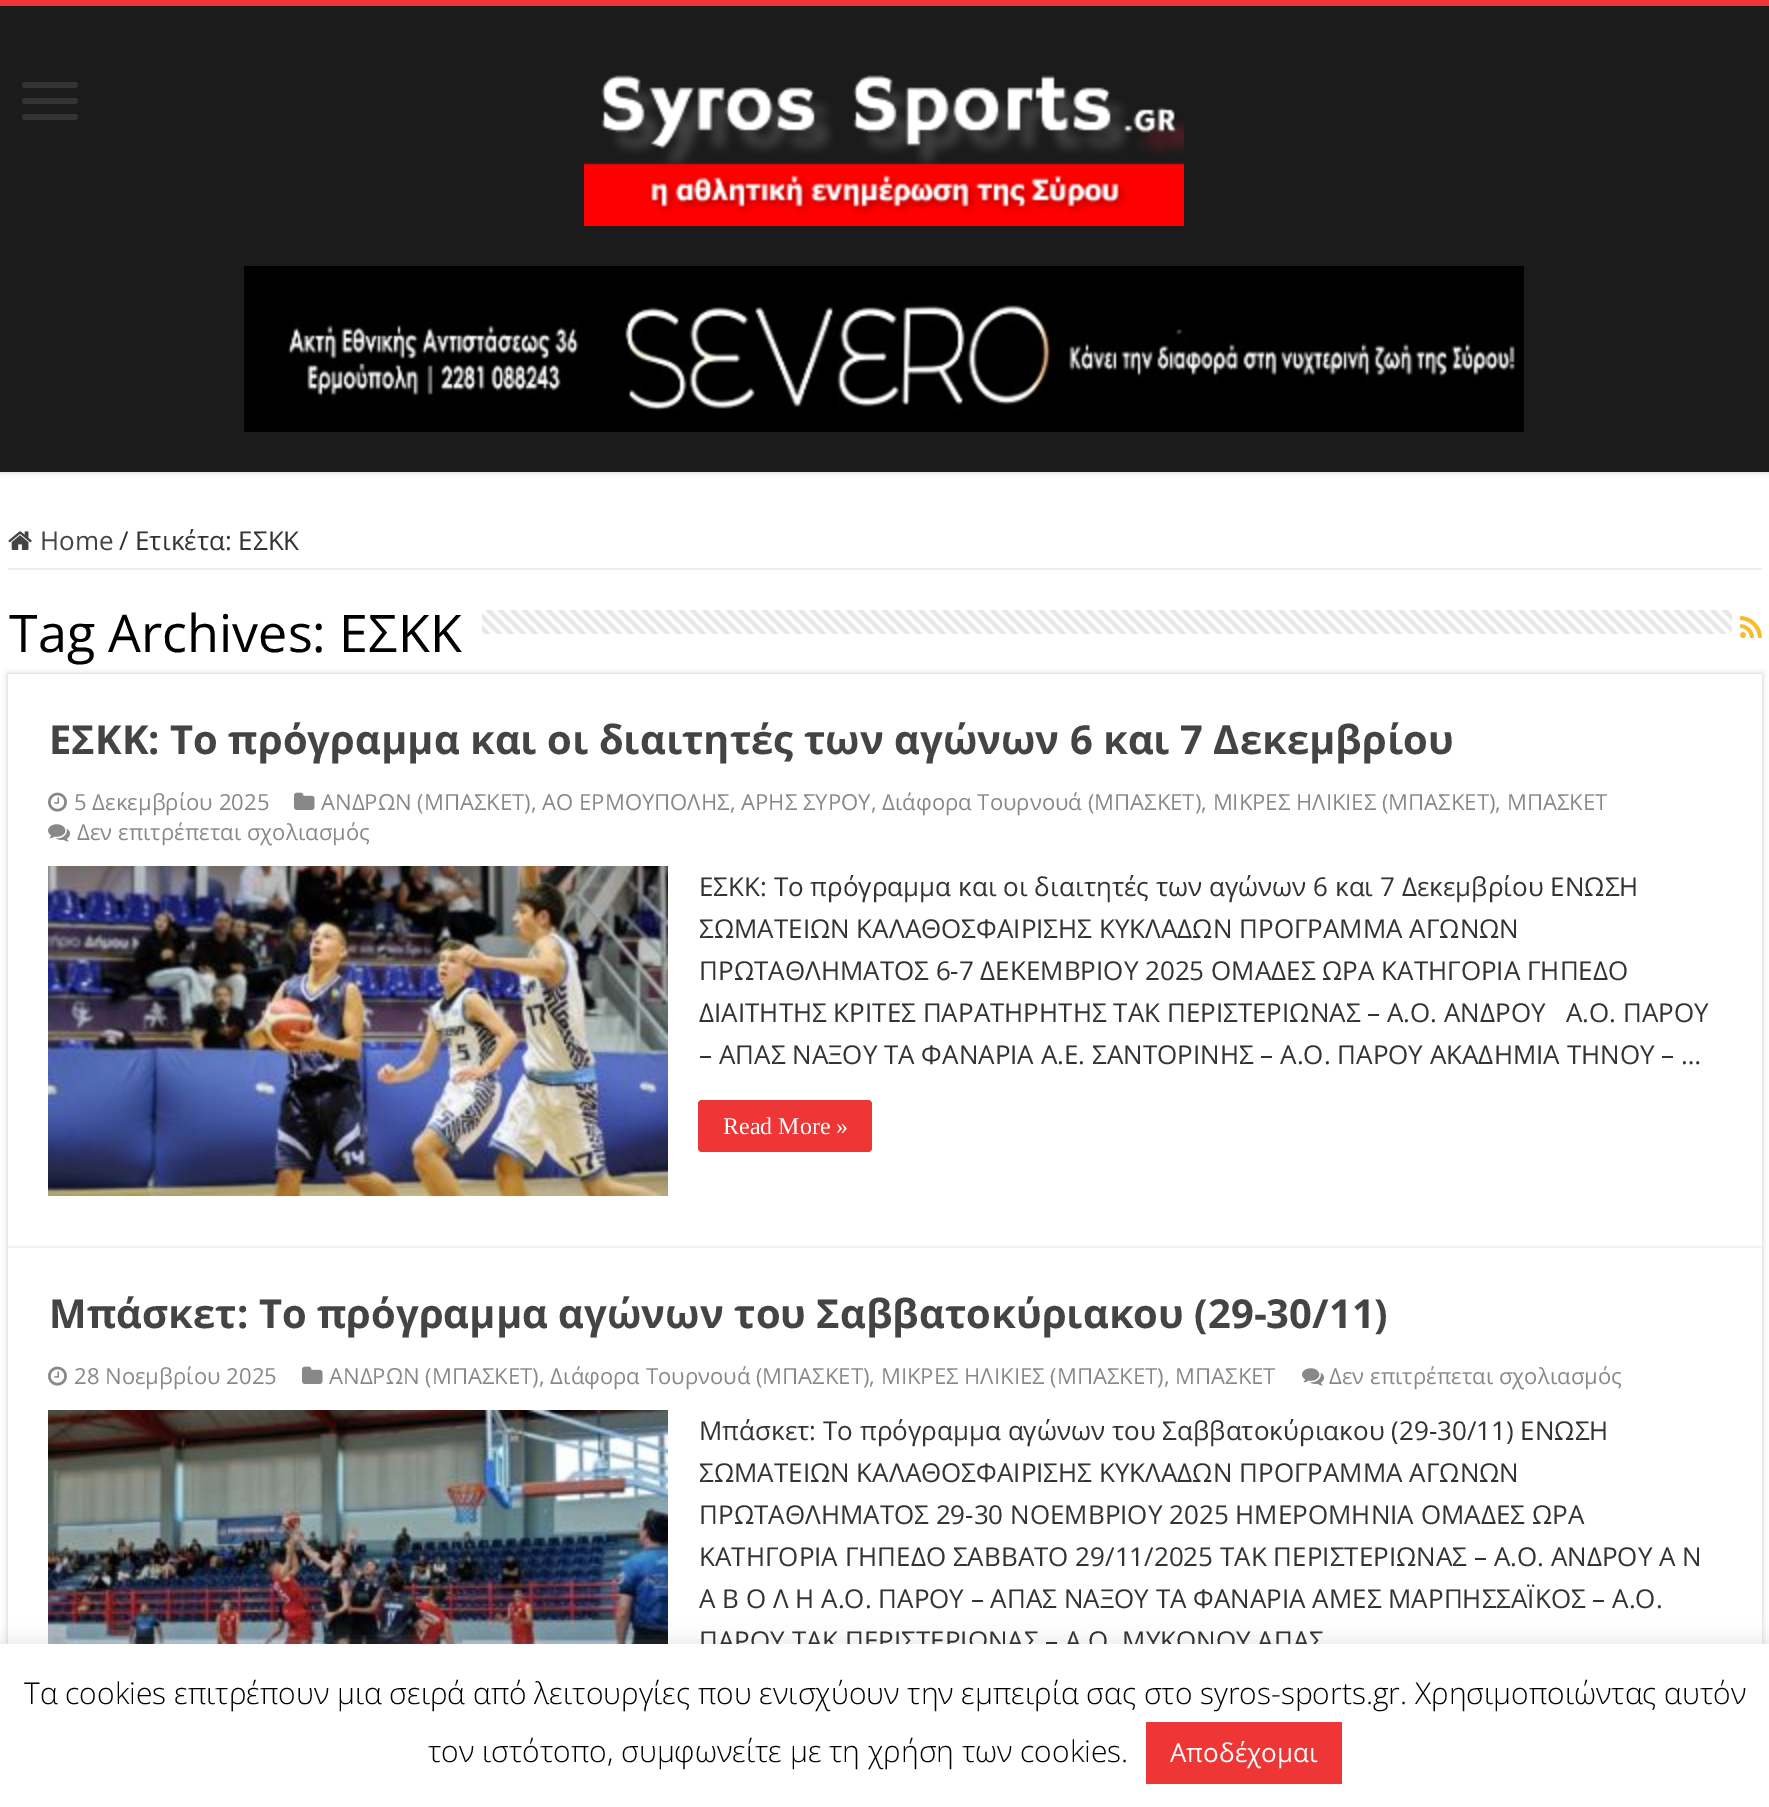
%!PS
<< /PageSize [1769 1807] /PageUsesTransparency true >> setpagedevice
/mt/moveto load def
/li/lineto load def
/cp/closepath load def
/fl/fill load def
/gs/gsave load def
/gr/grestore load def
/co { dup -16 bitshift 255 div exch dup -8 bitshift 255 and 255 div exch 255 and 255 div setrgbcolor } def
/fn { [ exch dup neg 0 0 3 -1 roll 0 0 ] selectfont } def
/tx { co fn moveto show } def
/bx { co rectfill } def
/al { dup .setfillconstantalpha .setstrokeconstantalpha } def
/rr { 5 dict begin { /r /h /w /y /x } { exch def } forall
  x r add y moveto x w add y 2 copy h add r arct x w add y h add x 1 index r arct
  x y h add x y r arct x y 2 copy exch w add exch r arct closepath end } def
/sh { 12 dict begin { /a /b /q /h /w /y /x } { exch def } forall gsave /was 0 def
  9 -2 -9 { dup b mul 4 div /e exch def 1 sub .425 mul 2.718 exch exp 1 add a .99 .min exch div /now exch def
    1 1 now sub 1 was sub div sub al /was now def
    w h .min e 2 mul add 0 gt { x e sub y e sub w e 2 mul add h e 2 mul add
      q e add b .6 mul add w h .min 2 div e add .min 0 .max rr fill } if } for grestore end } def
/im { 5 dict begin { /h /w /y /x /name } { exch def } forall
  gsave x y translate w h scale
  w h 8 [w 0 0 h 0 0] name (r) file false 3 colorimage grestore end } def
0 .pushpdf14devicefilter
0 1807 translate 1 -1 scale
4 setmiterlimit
0 0 1769 1807 16#FFFFFF bx
16#CACACA co
0 0 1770 472 0 3 1 sh
0 6 1769 466 16#1B1B1B bx
0 0 1769 6 16#EF3636 bx
16#333333 co
22 82 56 6 3 rr fl
22 98 56 6 3 rr fl
22 114 56 6 3 rr fl
(media/1.raw) 584 75 600 151 im
(media/2.raw) 244 266 1280 166 im
8 568 1754 2 16#EEEEEE bx
(media/3.raw) 8 531 24 19 im
(media/4.raw) 482 610 1250 24 im
(media/5.raw) 1740 616 22 22 im
gs
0 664 mt 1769 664 li 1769 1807 li 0 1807 li cp 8 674 mt 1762 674 li 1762 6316 li 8 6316 li cp eoclip newpath
16#CACACA co
8 674 1754 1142 0 3 1 sh
gr
8 1246 1754 2 16#F2F2F2 bx
(media/6.raw) 48 792 19 20 im
(media/7.raw) 294 792 21 18 im
(media/8.raw) 48 824 23 18 im
(media/9.raw) 48 866 620 330 im
16#EF3636 co
698 1100 174 52 4 rr fl
(media/6.raw) 48 1366 19 20 im
(media/7.raw) 302 1366 21 18 im
(media/8.raw) 1302 1368 23 18 im
(media/10.raw) 48 1410 620 234 im
16#ACABAB co
0 1642 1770 164 0 10 .3 sh
(Home) 40 550 /OpenSans-Regular 26 16#444444 tx
(/) 119 550 /OpenSans-Regular 26 16#333333 tx
(Ετικέτα: ΕΣΚΚ) 135 550 /OpenSans-Regular 26 16#333333 tx
(Tag Archives: ΕΣΚΚ) 9 652 /OpenSans-Regular 52 16#000000 tx
(ΕΣΚΚ: Το πρόγραμμα και οι διαιτητές των αγώνων 6 και 7 Δεκεμβρίου) 49 754 /OpenSans-Bold 40 16#444444 tx
(5 Δεκεμβρίου 2025) 74 810 /OpenSans-Regular 22.1 16#888888 tx
(ΑΝΔΡΩΝ \(ΜΠΑΣΚΕΤ\), ΑΟ ΕΡΜΟΥΠΟΛΗΣ, ΑΡΗΣ ΣΥΡΟΥ, Διάφορα Τουρνουά \(ΜΠΑΣΚΕΤ\), ΜΙΚΡΕΣ ΗΛΙΚΙΕΣ \(ΜΠΑΣΚΕΤ\), ΜΠΑΣΚΕΤ) 321 810 /OpenSans-Regular 22.1 16#888888 tx
(Δεν επιτρέπεται σχολιασμός) 77 840 /OpenSans-Regular 22.1 16#888888 tx
(ΕΣΚΚ: Το πρόγραμμα και οι διαιτητές των αγώνων 6 και 7 Δεκεμβρίου ΕΝΩΣΗ) 699 896 /OpenSans-Regular 26 16#333333 tx
(ΣΩΜΑΤΕΙΩΝ ΚΑΛΑΘΟΣΦΑΙΡΙΣΗΣ ΚΥΚΛΑΔΩΝ ΠΡΟΓΡΑΜΜΑ ΑΓΩΝΩΝ) 699 938 /OpenSans-Regular 26 16#333333 tx
(ΠΡΩΤΑΘΛΗΜΑΤΟΣ 6-7 ΔΕΚΕΜΒΡΙΟΥ 2025 ΟΜΑΔΕΣ ΩΡΑ ΚΑΤΗΓΟΡΙΑ ΓΗΠΕΔΟ) 699 980 /OpenSans-Regular 26 16#333333 tx
(ΔΙΑΙΤΗΤΗΣ ΚΡΙΤΕΣ ΠΑΡΑΤΗΡΗΤΗΣ ΤΑΚ ΠΕΡΙΣΤΕΡΙΩΝΑΣ – Α.Ο. ΑΝΔΡΟΥ   Α.Ο. ΠΑΡΟΥ) 699 1022 /OpenSans-Regular 26 16#333333 tx
(– ΑΠΑΣ ΝΑΞΟΥ ΤΑ ΦΑΝΑΡΙΑ Α.Ε. ΣΑΝΤΟΡΙΝΗΣ – Α.Ο. ΠΑΡΟΥ ΑΚΑΔΗΜΙΑ ΤΗΝΟΥ – …) 699 1064 /OpenSans-Regular 26 16#333333 tx
(Read More ») 723 1134 /LiberationSerif-Regular 24 16#FFFFFF tx
(Μπάσκετ: Το πρόγραμμα αγώνων του Σαββατοκύριακου \(29-30/11\)) 49 1328 /OpenSans-Bold 40 16#444444 tx
(28 Νοεμβρίου 2025) 74 1384 /OpenSans-Regular 22.1 16#888888 tx
(ΑΝΔΡΩΝ \(ΜΠΑΣΚΕΤ\), Διάφορα Τουρνουά \(ΜΠΑΣΚΕΤ\), ΜΙΚΡΕΣ ΗΛΙΚΙΕΣ \(ΜΠΑΣΚΕΤ\), ΜΠΑΣΚΕΤ) 329 1384 /OpenSans-Regular 22.1 16#888888 tx
(Δεν επιτρέπεται σχολιασμός) 1329 1384 /OpenSans-Regular 22.1 16#888888 tx
(Μπάσκετ: Το πρόγραμμα αγώνων του Σαββατοκύριακου \(29-30/11\) ΕΝΩΣΗ) 699 1440 /OpenSans-Regular 26 16#333333 tx
(ΣΩΜΑΤΕΙΩΝ ΚΑΛΑΘΟΣΦΑΙΡΙΣΗΣ ΚΥΚΛΑΔΩΝ ΠΡΟΓΡΑΜΜΑ ΑΓΩΝΩΝ) 699 1482 /OpenSans-Regular 26 16#333333 tx
(ΠΡΩΤΑΘΛΗΜΑΤΟΣ 29-30 ΝΟΕΜΒΡΙΟΥ 2025 ΗΜΕΡΟΜΗΝΙA ΟΜΑΔΕΣ ΩΡΑ) 699 1524 /OpenSans-Regular 26 16#333333 tx
(ΚΑΤΗΓΟΡΙΑ ΓΗΠΕΔΟ ΣΑΒΒΑΤΟ 29/11/2025 ΤΑΚ ΠΕΡΙΣΤΕΡΙΩΝΑΣ – Α.Ο. ΑΝΔΡΟΥ Α Ν) 699 1566 /OpenSans-Regular 26 16#333333 tx
(Α Β Ο Λ Η Α.Ο. ΠΑΡΟΥ – ΑΠΑΣ ΝΑΞΟΥ ΤΑ ΦΑΝΑΡΙΑ ΑΜΕΣ ΜΑΡΠΗΣΣΑΪΚΟΣ – Α.Ο.) 699 1608 /OpenSans-Regular 26 16#333333 tx
(ΠΑΡΟΥ ΤΑΚ ΠΕΡΙΣΤΕΡΙΩΝΑΣ – Α.Ο. ΜΥΚΟΝΟΥ ΑΠΑΣ) 699 1650 /OpenSans-Regular 26 16#333333 tx
0 1644 1769 163 16#FFFFFF bx
(Τα cookies επιτρέπουν μια σειρά από λειτουργίες που ενισχύουν την εμπειρία σας στο syros-sports.gr. Χρησιμοποιώντας αυτόν) 24 1704 /OpenSans-Light 30 16#000000 tx
(τον ιστότοπο, συμφωνείτε με τη χρήση των cookies.) 428 1762 /OpenSans-Light 30 16#000000 tx
1146 1722 196 62 16#EF3636 bx
(Αποδέχομαι) 1170 1762 /OpenSans-Regular 26 16#FFFFFF tx
.poppdf14devicefilter showpage
